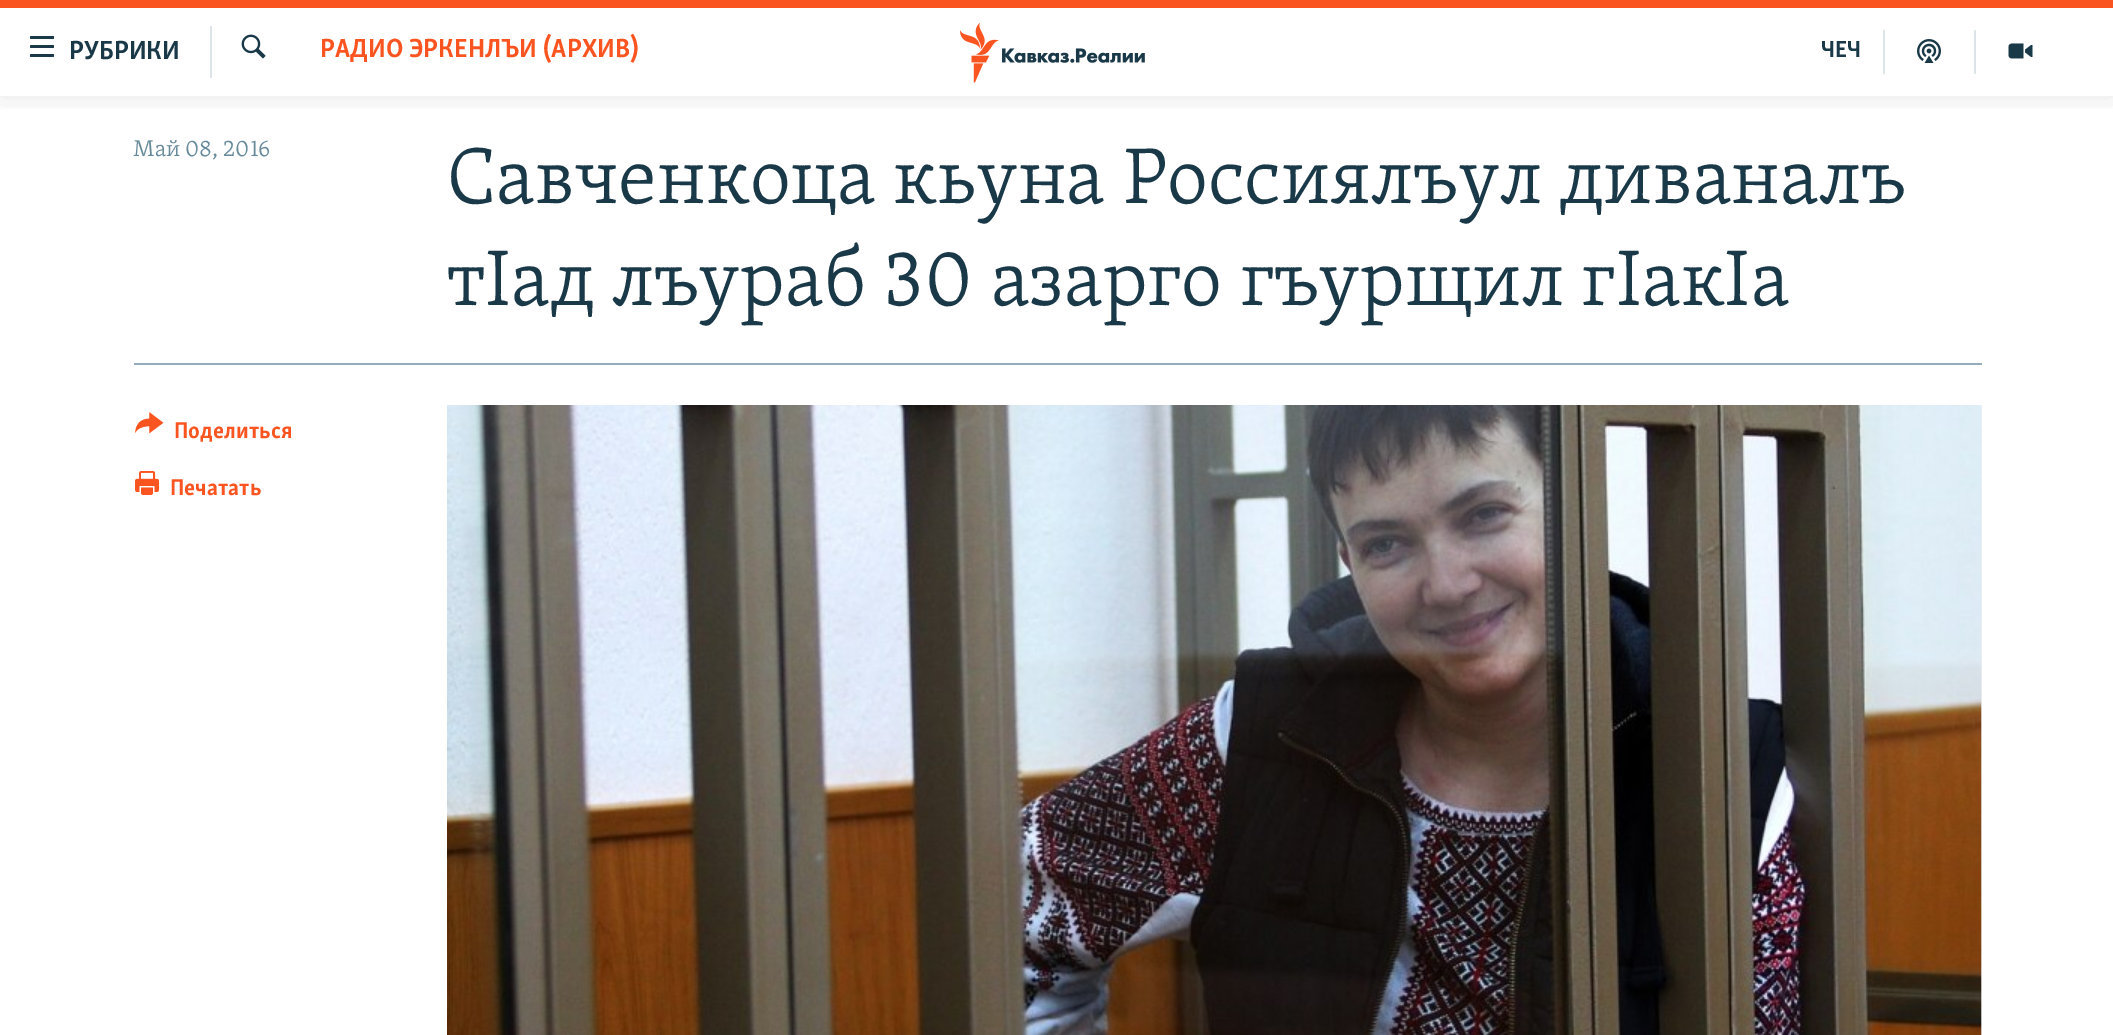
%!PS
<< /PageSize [2113 1035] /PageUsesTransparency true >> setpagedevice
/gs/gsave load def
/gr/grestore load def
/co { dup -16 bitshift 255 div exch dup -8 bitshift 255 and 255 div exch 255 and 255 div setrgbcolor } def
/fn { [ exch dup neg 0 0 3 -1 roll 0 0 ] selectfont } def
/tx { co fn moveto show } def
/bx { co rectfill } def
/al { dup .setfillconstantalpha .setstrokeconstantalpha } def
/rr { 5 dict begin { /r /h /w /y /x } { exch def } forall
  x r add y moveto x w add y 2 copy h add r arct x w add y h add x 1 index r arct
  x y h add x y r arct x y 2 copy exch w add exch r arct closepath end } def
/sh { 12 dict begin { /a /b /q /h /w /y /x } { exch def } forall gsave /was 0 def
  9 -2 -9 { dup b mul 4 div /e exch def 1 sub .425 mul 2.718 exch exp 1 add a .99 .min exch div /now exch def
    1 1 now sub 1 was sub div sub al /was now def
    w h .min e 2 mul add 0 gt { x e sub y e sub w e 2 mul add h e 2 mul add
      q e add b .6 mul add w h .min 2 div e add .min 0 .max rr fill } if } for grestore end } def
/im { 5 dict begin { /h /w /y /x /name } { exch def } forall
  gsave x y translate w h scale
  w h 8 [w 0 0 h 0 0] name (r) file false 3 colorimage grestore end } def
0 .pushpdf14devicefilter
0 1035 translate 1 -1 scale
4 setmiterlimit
0 0 2113 1035 16#FFFFFF bx
gs
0 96 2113 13 rectclip
16#000000 co
0 0 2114 96 0 15 .1 sh
gr
0 0 2113 8 16#FA5420 bx
(media/1.raw) 30 36 24 21 im
210 26 2 52 16#DCE4E8 bx
(media/2.raw) 241 34 25 25 im
(media/3.raw) 960 23 185 60 im
1883 30 2 44 16#DCE4E8 bx
1974 30 2 44 16#DCE4E8 bx
(media/4.raw) 1917 39 24 24 im
(media/5.raw) 2008 43 25 16 im
134 363 1848 2 16#95ADB9 bx
(media/6.raw) 135 412 29 22 im
(media/7.raw) 135 471 24 24 im
1981 405 1 630 16#EDEFF0 bx
(media/8.raw) 447 405 1535 630 im
(РУБРИКИ) 69 59 /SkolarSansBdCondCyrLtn-Bold 27 16#1A3948 tx
(РАДИО ЭРКЕНЛЪИ \(АРХИВ\)) 320 57 /SkolarSansBdCondCyrLtn-Bold 27 16#FA5420 tx
(ЧЕЧ) 1821 57 /SkolarSansBdCondCyrLtn-Bold 24 16#1A3948 tx
(Май 08, 2016) 133 156 /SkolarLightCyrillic-Light 23.5 16#678A9B tx
(Савченкоца кьуна Россиялъул диваналъ) 447 203 /SkolarLightCyrillic-Light 81 16#1A3948 tx
(тIад лъураб 30 азарго гъурщил гIакIа) 447 305 /SkolarLightCyrillic-Light 81 16#1A3948 tx
(Поделиться) 174 438 /SkolarSansBdCondCyrLtn-Bold 23.5 16#FA5420 tx
(Печатать) 170 495 /SkolarSansBdCondCyrLtn-Bold 23.5 16#FA5420 tx
.poppdf14devicefilter showpage
